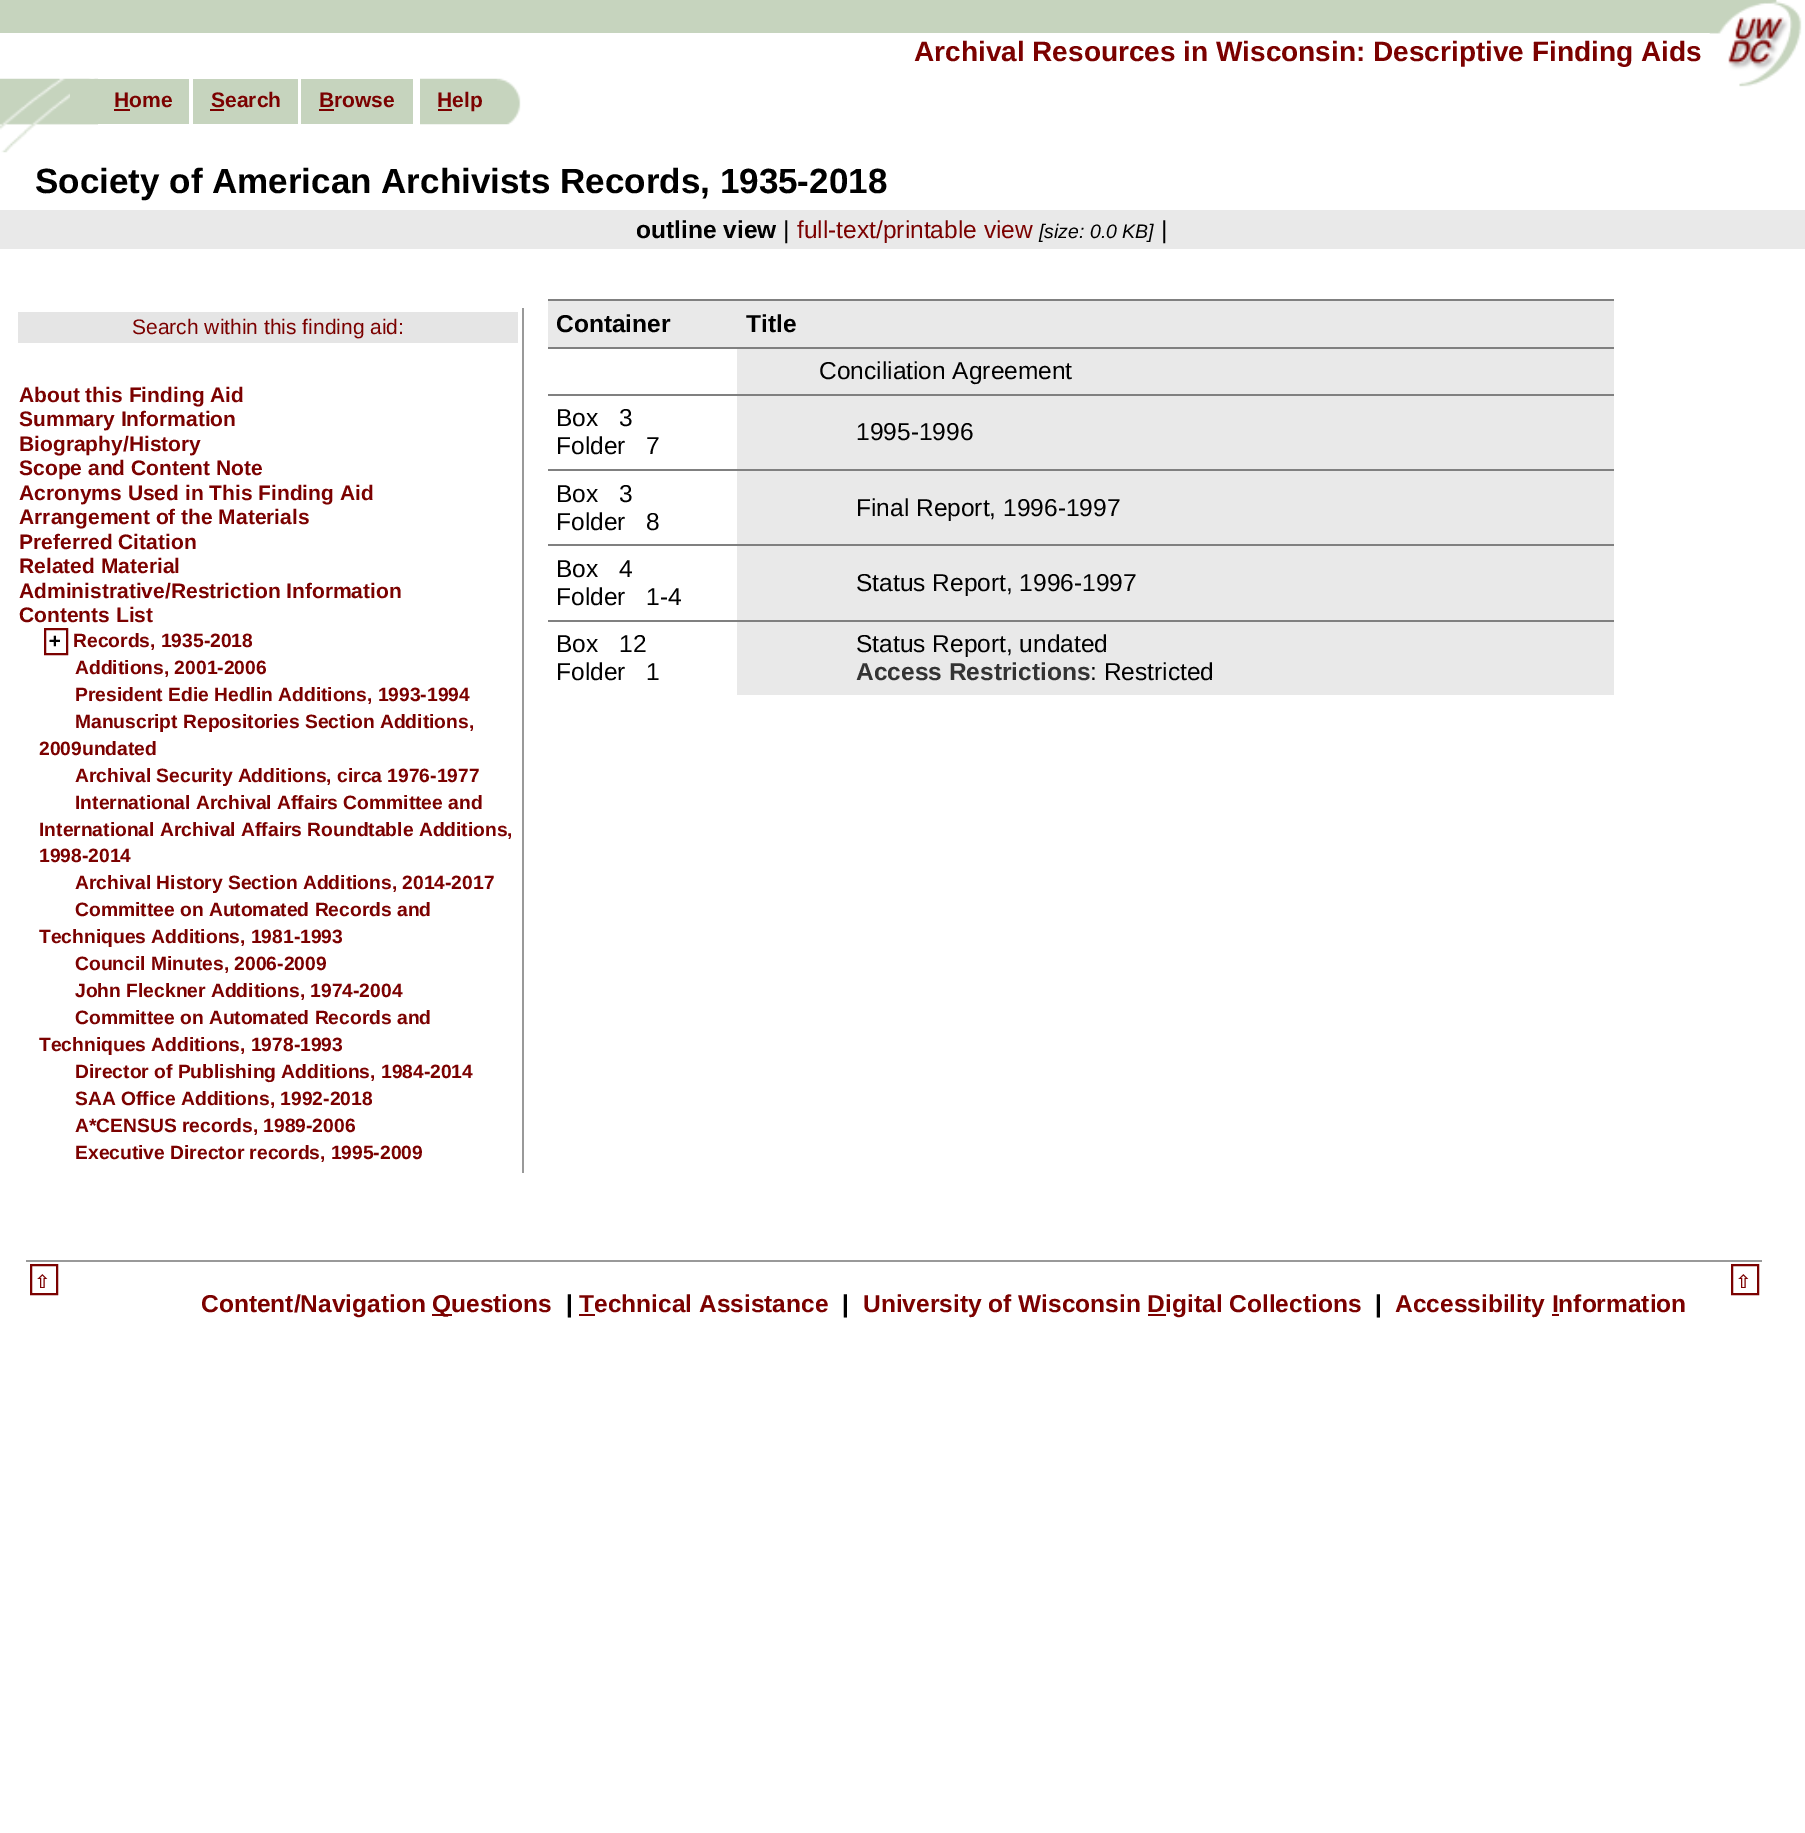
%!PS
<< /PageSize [1805 1833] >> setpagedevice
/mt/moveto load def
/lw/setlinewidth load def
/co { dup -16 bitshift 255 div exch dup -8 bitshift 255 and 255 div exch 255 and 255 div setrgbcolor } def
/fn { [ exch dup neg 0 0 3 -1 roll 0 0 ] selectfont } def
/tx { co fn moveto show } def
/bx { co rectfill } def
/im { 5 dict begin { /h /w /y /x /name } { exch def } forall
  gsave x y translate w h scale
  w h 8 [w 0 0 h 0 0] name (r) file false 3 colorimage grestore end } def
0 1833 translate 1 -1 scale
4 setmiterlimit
0 0 1805 1833 16#FFFFFF bx
0 0 1710 33 16#C6D4BE bx
(media/1.raw) 1709 0 96 87 im
(media/2.raw) 0 78 98 75 im
70 79 119 45 16#C6D4BE bx
114 109 16 2 16#7B0100 bx
193 79 105 45 16#C6D4BE bx
210 109 14 2 16#7B0100 bx
301 79 112 45 16#C6D4BE bx
319 109 15 2 16#7B0100 bx
(media/3.raw) 420 78 101 47 im
438 109 14 2 16#7B0100 bx
0 210 1805 39 16#E9E9E9 bx
522 308 2 865 16#999999 bx
18 312 500 31 16#E5E5E5 bx
16#7B0100 co
2 lw
45 629 22 25 rectstroke
548 301 1066 394 16#E9E9E9 bx
548 299 1066 2 16#808080 bx
548 349 189 45 16#FFFFFF bx
548 347 1066 2 16#808080 bx
548 396 189 73 16#FFFFFF bx
548 394 1066 2 16#808080 bx
548 471 189 73 16#FFFFFF bx
548 469 1066 2 16#808080 bx
548 546 189 74 16#FFFFFF bx
548 544 1066 2 16#808080 bx
548 622 189 73 16#FFFFFF bx
548 620 1066 2 16#808080 bx
26 1260 1736 2 16#999999 bx
16#7B0100 co
31 1265 26 29 rectstroke
1732 1265 26 29 rectstroke
432 1314 20 2 16#7B0100 bx
579 1314 16 2 16#7B0100 bx
1148 1314 18 2 16#7B0100 bx
1552 1314 7 2 16#7B0100 bx
(Archival Resources in Wisconsin: Descriptive Finding Aids) 914 61 /LiberationSans-Bold 28 16#7B0100 tx
(Home) 114 107 /LiberationSans-Bold 21 16#7B0100 tx
(Search) 211 107 /LiberationSans-Bold 21 16#7B0100 tx
(Browse) 319 107 /LiberationSans-Bold 21 16#7B0100 tx
(Help) 437 107 /LiberationSans-Bold 21 16#7B0100 tx
(Society of American Archivists Records, 1935-2018) 35 193 /LiberationSans-Bold 35 16#000000 tx
(outline view) 636 238 /LiberationSans-Bold 24.5 16#000000 tx
(|) 783 238 /LiberationSans-Regular 24.5 16#000000 tx
(full-text/printable view) 797 238 /LiberationSans-Regular 24.5 16#7B0100 tx
([size: 0.0 KB]) 1039 238 /LiberationSans-Italic 19.5 16#000000 tx
(|) 1161 238 /LiberationSans-Regular 24.5 16#000000 tx
(Search within this finding aid:) 132 334 /LiberationSans-Regular 21 16#7B0100 tx
(About this Finding Aid) 19 402 /LiberationSans-Bold 21 16#7B0100 tx
(Summary Information) 19 426 /LiberationSans-Bold 21 16#7B0100 tx
(Biography/History) 19 451 /LiberationSans-Bold 21 16#7B0100 tx
(Scope and Content Note) 19 475 /LiberationSans-Bold 21 16#7B0100 tx
(Acronyms Used in This Finding Aid) 19 500 /LiberationSans-Bold 21 16#7B0100 tx
(Arrangement of the Materials) 19 524 /LiberationSans-Bold 21 16#7B0100 tx
(Preferred Citation) 19 549 /LiberationSans-Bold 21 16#7B0100 tx
(Related Material) 19 573 /LiberationSans-Bold 21 16#7B0100 tx
(Administrative/Restriction Information) 19 598 /LiberationSans-Bold 21 16#7B0100 tx
(Contents List) 19 622 /LiberationSans-Bold 21 16#7B0100 tx
/DejaVuSansMono-Bold 19.25 fn
16#000000 co
49 647 mt 2 0 (+) ashow
(Records, 1935-2018) 73 647 /LiberationSans-Bold 19.25 16#7B0100 tx
(Additions, 2001-2006) 75 674 /LiberationSans-Bold 19.25 16#7B0100 tx
(President Edie Hedlin Additions, 1993-1994) 75 701 /LiberationSans-Bold 19.25 16#7B0100 tx
(Manuscript Repositories Section Additions,) 75 728 /LiberationSans-Bold 19.25 16#7B0100 tx
(2009undated) 39 755 /LiberationSans-Bold 19.25 16#7B0100 tx
(Archival Security Additions, circa 1976-1977) 75 782 /LiberationSans-Bold 19.25 16#7B0100 tx
(International Archival Affairs Committee and) 75 809 /LiberationSans-Bold 19.25 16#7B0100 tx
(International Archival Affairs Roundtable Additions,) 39 836 /LiberationSans-Bold 19.25 16#7B0100 tx
(1998-2014) 39 862 /LiberationSans-Bold 19.25 16#7B0100 tx
(Archival History Section Additions, 2014-2017) 75 889 /LiberationSans-Bold 19.25 16#7B0100 tx
(Committee on Automated Records and) 75 916 /LiberationSans-Bold 19.25 16#7B0100 tx
(Techniques Additions, 1981-1993) 39 943 /LiberationSans-Bold 19.25 16#7B0100 tx
(Council Minutes, 2006-2009) 75 970 /LiberationSans-Bold 19.25 16#7B0100 tx
(John Fleckner Additions, 1974-2004) 75 997 /LiberationSans-Bold 19.25 16#7B0100 tx
(Committee on Automated Records and) 75 1024 /LiberationSans-Bold 19.25 16#7B0100 tx
(Techniques Additions, 1978-1993) 39 1051 /LiberationSans-Bold 19.25 16#7B0100 tx
(Director of Publishing Additions, 1984-2014) 75 1078 /LiberationSans-Bold 19.25 16#7B0100 tx
(SAA Office Additions, 1992-2018) 75 1105 /LiberationSans-Bold 19.25 16#7B0100 tx
(A*CENSUS records, 1989-2006) 75 1132 /LiberationSans-Bold 19.25 16#7B0100 tx
(Executive Director records, 1995-2009) 75 1159 /LiberationSans-Bold 19.25 16#7B0100 tx
(Container) 556 332 /LiberationSans-Bold 24.5 16#000000 tx
(Title) 746 332 /LiberationSans-Bold 24.5 16#000000 tx
(Conciliation Agreement) 819 379 /LiberationSans-Regular 24.5 16#000000 tx
(Box) 556 426 /LiberationSans-Regular 24.5 16#000000 tx
(3) 619 426 /LiberationSans-Regular 24.5 16#000000 tx
(Folder) 556 454 /LiberationSans-Regular 24.5 16#000000 tx
(7) 646 454 /LiberationSans-Regular 24.5 16#000000 tx
(1995-1996) 856 440 /LiberationSans-Regular 24.5 16#000000 tx
(Box) 556 502 /LiberationSans-Regular 24.5 16#000000 tx
(3) 619 502 /LiberationSans-Regular 24.5 16#000000 tx
(Folder) 556 530 /LiberationSans-Regular 24.5 16#000000 tx
(8) 646 530 /LiberationSans-Regular 24.5 16#000000 tx
(Final Report, 1996-1997) 856 516 /LiberationSans-Regular 24.5 16#000000 tx
(Box) 556 577 /LiberationSans-Regular 24.5 16#000000 tx
(4) 619 577 /LiberationSans-Regular 24.5 16#000000 tx
(Folder) 556 605 /LiberationSans-Regular 24.5 16#000000 tx
(1-4) 646 605 /LiberationSans-Regular 24.5 16#000000 tx
(Status Report, 1996-1997) 856 591 /LiberationSans-Regular 24.5 16#000000 tx
(Box) 556 652 /LiberationSans-Regular 24.5 16#000000 tx
(12) 619 652 /LiberationSans-Regular 24.5 16#000000 tx
(Folder) 556 680 /LiberationSans-Regular 24.5 16#000000 tx
(1) 646 680 /LiberationSans-Regular 24.5 16#000000 tx
(Status Report, undated) 856 652 /LiberationSans-Regular 24.5 16#000000 tx
(Access Restrictions) 856 680 /LiberationSans-Bold 24.5 16#333333 tx
(: Restricted) 1090 680 /LiberationSans-Regular 24.5 16#000000 tx
/DejaVuSansMono-Bold 24.5 fn
16#7B0100 co
35 1288 mt 2 0 (⇧) ashow
1736 1288 mt 2 0 (⇧) ashow
(Content/Navigation) 201 1312 /LiberationSans-Bold 24.5 16#7B0100 tx
(Questions) 432 1312 /LiberationSans-Bold 24.5 16#7B0100 tx
(|) 566 1312 /LiberationSans-Bold 24.5 16#000000 tx
(Technical Assistance) 579 1312 /LiberationSans-Bold 24.5 16#7B0100 tx
(|) 842 1312 /LiberationSans-Bold 24.5 16#000000 tx
(University of Wisconsin Digital Collections) 863 1312 /LiberationSans-Bold 24.5 16#7B0100 tx
(|) 1375 1312 /LiberationSans-Bold 24.5 16#000000 tx
(Accessibility Information) 1395 1312 /LiberationSans-Bold 24.5 16#7B0100 tx
showpage
